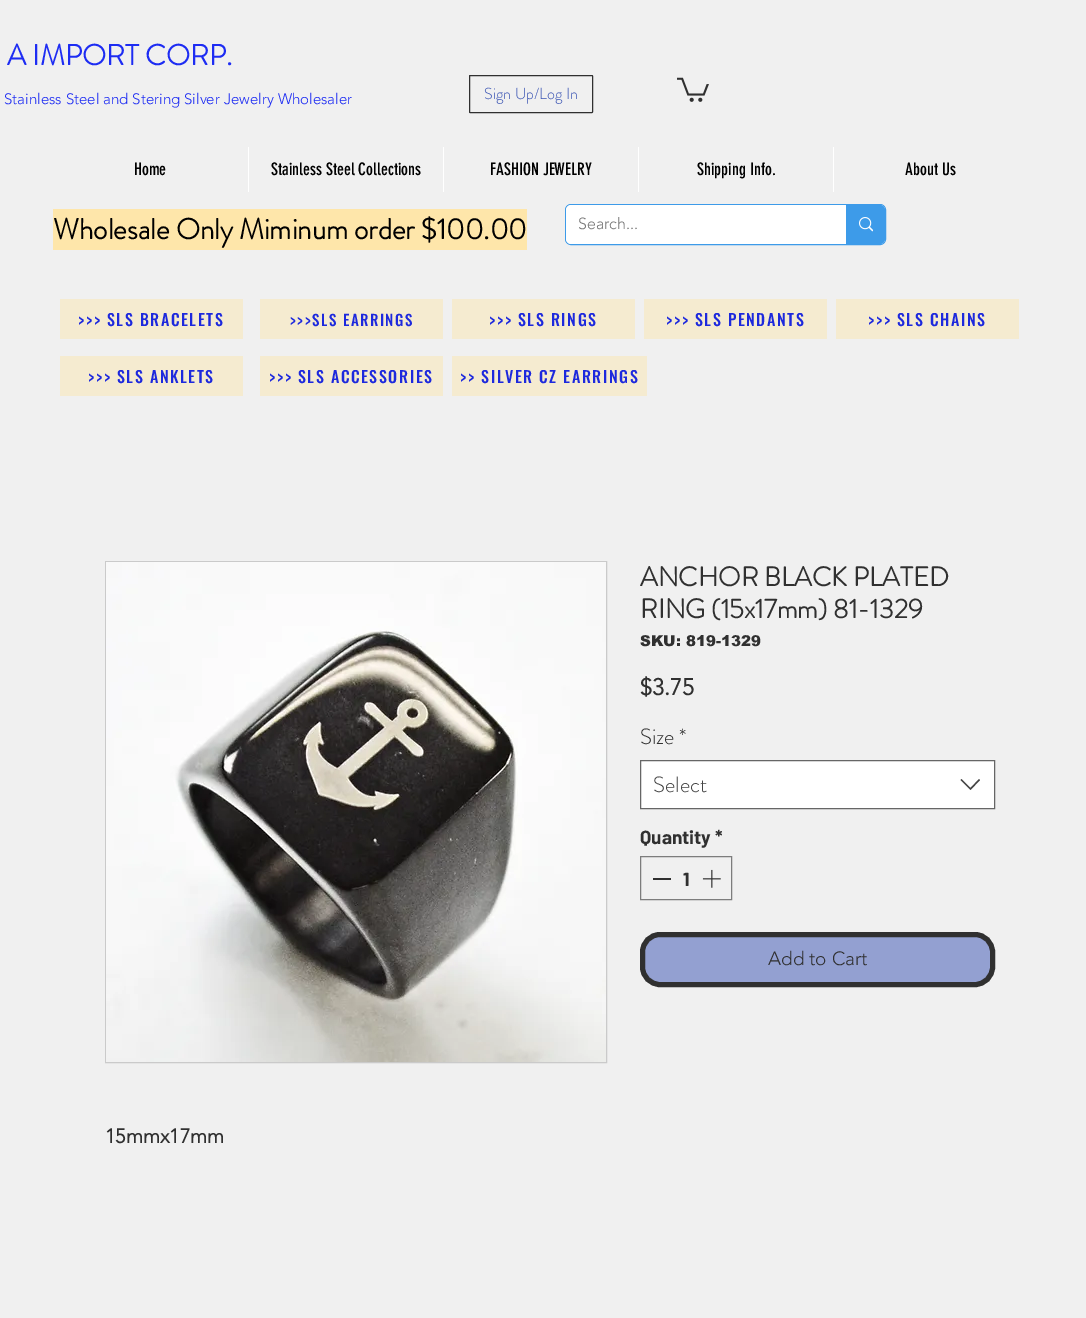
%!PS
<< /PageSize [1086 1318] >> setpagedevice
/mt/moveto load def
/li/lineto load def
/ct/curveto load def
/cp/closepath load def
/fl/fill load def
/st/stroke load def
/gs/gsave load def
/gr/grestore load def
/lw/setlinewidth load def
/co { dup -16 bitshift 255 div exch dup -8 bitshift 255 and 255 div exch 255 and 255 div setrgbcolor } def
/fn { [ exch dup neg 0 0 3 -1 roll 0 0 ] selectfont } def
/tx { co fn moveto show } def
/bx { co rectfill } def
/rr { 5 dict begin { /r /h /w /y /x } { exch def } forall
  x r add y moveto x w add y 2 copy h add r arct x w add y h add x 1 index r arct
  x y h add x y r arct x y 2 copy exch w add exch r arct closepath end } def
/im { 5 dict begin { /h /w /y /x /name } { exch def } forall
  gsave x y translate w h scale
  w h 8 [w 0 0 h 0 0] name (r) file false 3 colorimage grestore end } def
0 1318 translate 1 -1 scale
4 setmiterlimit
0 0 1086 1318 16#F0F0F0 bx
16#303030 co
469.5 75.5 123 37 .5 rr st
(media/1.raw) 677 77 32 25 im
248 147 1 45 16#FFFFFF bx
443 147 1 45 16#FFFFFF bx
638 147 1 45 16#FFFFFF bx
833 147 1 45 16#FFFFFF bx
53 209 474 41 16#FEE6AA bx
16#3D9BE9 co
565.5 204.5 320 40 5.5 rr st
16#FFFFFF co
566 205 319 39 5 rr fl
16#3D9BE9 co
846 205 mt 880 205 li 883 205 885 207 885 210 ct 885 239 li 885 242 883 244 880 244 ct 846 244 li cp fl
(media/2.raw) 859 217 14 15 im
60 299 183 40 16#F5EBD0 bx
260 299 183 40 16#F5EBD0 bx
452 299 183 40 16#F5EBD0 bx
644 299 183 40 16#F5EBD0 bx
836 299 183 40 16#F5EBD0 bx
60 356 183 40 16#F5EBD0 bx
260 356 183 40 16#F5EBD0 bx
452 356 195 40 16#F5EBD0 bx
16#FFFFFF co
640.5 760.5 mt 994.5 760.5 li 994.5 808.5 li 640.5 808.5 li cp gs fl gr
16#666666 co
st
16#444444 co
979 779 mt 980 780 li 970.5 790 li 960.5 780 li 961.5 779 li 970.5 788 li cp eofill
16#7D7D7D co
640.5 856.5 91 43 rectstroke
653 878 18 2 16#303030 bx
(media/3.raw) 702 869 19 19 im
16#93A0D1 co
642.5 934.5 350 50 17.5 rr gs fl gr
16#303030 co
5 lw
st
16#CACACA co
1 lw
105.5 561.5 501 501 rectstroke
(media/4.raw) 106 562 500 500 im
(A IMPORT CORP.) 7 65 /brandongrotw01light-Bold 29 16#1D2CF3 tx
(Stainless Steel and Stering Silver Jewelry Wholesaler) 4 104 /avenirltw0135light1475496-Light 15 16#1D2CF3 tx
(Sign Up/Log In) 484 99 /brandongrotw01light-Light 16 16#3A54B4 tx
(Home) 134 175 /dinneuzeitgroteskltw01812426-Regular 17 16#000000 tx
(Stainless Steel Collections) 271 175 /dinneuzeitgroteskltw01812426-Regular 17 16#000000 tx
(FASHION JEWELRY) 490 175 /dinneuzeitgroteskltw01812426-Regular 17 16#000000 tx
(Shipping Info.) 697 175 /dinneuzeitgroteskltw01812426-Regular 17 16#000000 tx
(About Us) 905 175 /dinneuzeitgroteskltw01812426-Regular 17 16#000000 tx
(Wholesale Only Miminum order $100.00) 53 239 /brandongrotw01light-Bold 29 16#000000 tx
(Search...) 578 229 /avenirltw0135light1475496-Light 16 16#787878 tx
/Oswald-Medium 16 fn
16#1D29DD co
78 326 mt 1.6 0 (>>> SLS BRACELETS) ashow
/Oswald-Medium 15 fn
290 326 mt 1.5 0 (>>>SLS EARRINGS) ashow
/Oswald-Medium 16 fn
489 326 mt 1.6 0 (>>> SLS RINGS) ashow
666 326 mt 1.6 0 (>>> SLS PENDANTS) ashow
868 326 mt 1.6 0 (>>> SLS CHAINS) ashow
88 383 mt 1.6 0 (>>> SLS ANKLETS) ashow
269 383 mt 1.6 0 (>>> SLS ACCESSORIES) ashow
460 383 mt 1.6 0 (>> SILVER CZ EARRINGS) ashow
(ANCHOR BLACK PLATED) 640 586 /brandongrotw01light-Bold 27 16#303030 tx
(RING \(15x17mm\) 81-1329) 640 618 /brandongrotw01light-Bold 27 16#303030 tx
(SKU: 819-1329) 640 646 /arial-Black 15 16#303030 tx
($3.75) 640 695 /avenirltw0135light1475496-Bold 23 16#303030 tx
(Size) 640 744 /brandongrotw01light-Light 22 16#303030 tx
(*) 679 744 /brandongrotw01light-Light 22 16#303030 tx
(Select) 653 792 /brandongrotw01light-Light 22 16#444444 tx
(Quantity *) 640 844 /Barlow-Bold 19 16#303030 tx
(1) 683 886 /Barlow-Bold 19 16#303030 tx
(Add to Cart) 768 965 /avenirltw0135light1475496-Light 19 16#303030 tx
(15mmx17mm) 105 1143 /avenirltw0135light1475496-Bold 20 16#303030 tx
showpage
